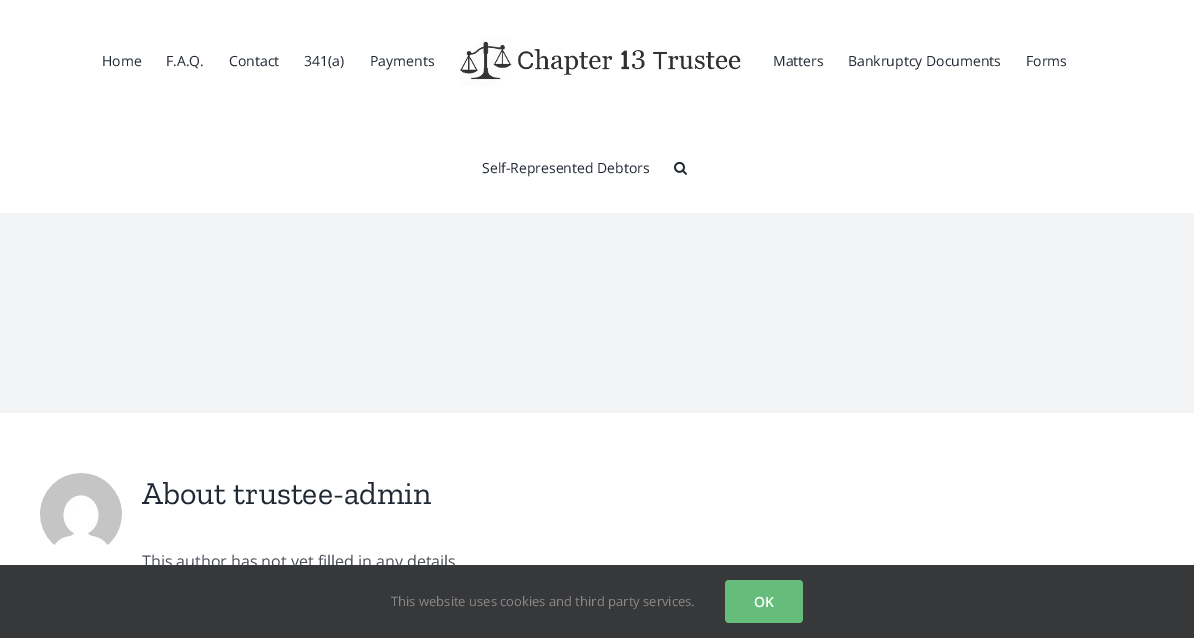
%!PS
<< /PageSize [1194 638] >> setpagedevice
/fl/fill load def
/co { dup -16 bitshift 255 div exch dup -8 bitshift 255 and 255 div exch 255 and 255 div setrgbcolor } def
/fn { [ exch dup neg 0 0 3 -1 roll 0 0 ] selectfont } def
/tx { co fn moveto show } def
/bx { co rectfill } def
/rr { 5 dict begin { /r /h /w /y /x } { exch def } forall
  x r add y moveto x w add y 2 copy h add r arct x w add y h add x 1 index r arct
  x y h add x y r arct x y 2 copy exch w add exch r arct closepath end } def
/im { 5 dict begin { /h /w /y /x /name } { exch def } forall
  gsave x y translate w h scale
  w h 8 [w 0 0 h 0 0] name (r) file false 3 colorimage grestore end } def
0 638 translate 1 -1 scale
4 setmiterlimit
0 0 1194 638 16#FFFFFF bx
(media/1.raw) 459 35 282 51 im
(media/2.raw) 674 161 13 14 im
0 213 1194 200 16#F2F3F5 bx
(media/3.raw) 40 473 82 72 im
(Home) 102 66 /OpenSans-Regular 14 16#212934 tx
(F.A.Q.) 166 66 /OpenSans-Regular 14 16#212934 tx
(Contact) 229 66 /OpenSans-Regular 14 16#212934 tx
(341\(a\)) 304 66 /OpenSans-Regular 14 16#212934 tx
(Payments) 370 66 /OpenSans-Regular 14 16#212934 tx
(Matters) 773 66 /OpenSans-Regular 14 16#212934 tx
(Bankruptcy Documents) 848 66 /OpenSans-Regular 14 16#212934 tx
(Forms) 1026 66 /OpenSans-Regular 14 16#212934 tx
(Self-Represented Debtors) 482 173 /OpenSans-Regular 14 16#212934 tx
(About trustee-admin) 142 504 /ZillaSlab-Regular 32 16#212934 tx
(This author has not yet filled in any details) 142 567 /OpenSans-Regular 16 16#4A4E57 tx
0 565 1194 73 16#363839 bx
(This website uses cookies and third party services.) 391 606 /OpenSans-Regular 13 16#8C8989 tx
16#65BC7B co
725 580 78 43 4 rr fl
(OK) 754 607 /OpenSans-SemiBold 14 16#FFFFFF tx
showpage
